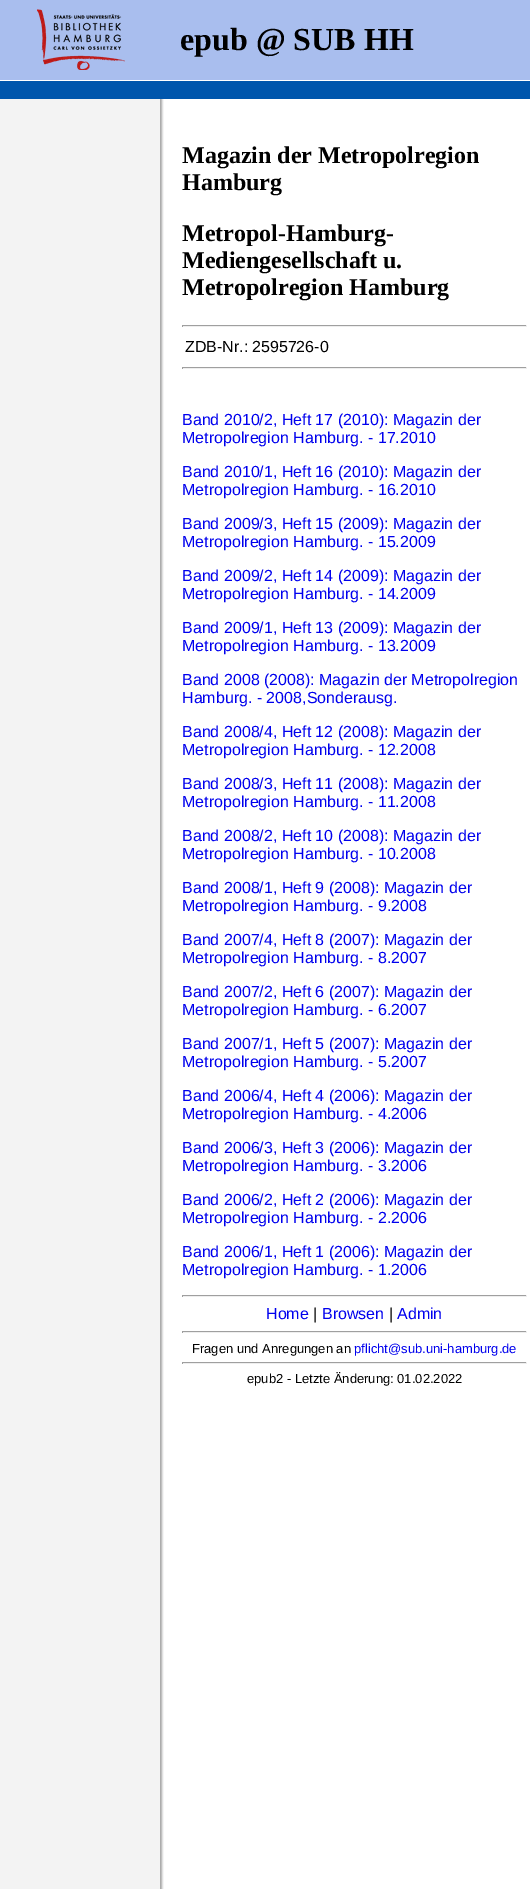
%!PS
<< /PageSize [530 1889] >> setpagedevice
/co { dup -16 bitshift 255 div exch dup -8 bitshift 255 and 255 div exch 255 and 255 div setrgbcolor } def
/fn { [ exch dup neg 0 0 3 -1 roll 0 0 ] selectfont } def
/tx { co fn moveto show } def
/bx { co rectfill } def
/im { 5 dict begin { /h /w /y /x /name } { exch def } forall
  gsave x y translate w h scale
  w h 8 [w 0 0 h 0 0] name (r) file false 3 colorimage grestore end } def
0 1889 translate 1 -1 scale
4 setmiterlimit
0 0 530 1889 16#FFFFFF bx
(media/1.raw) 0 99 164 1790 im
0 0 530 80 16#A9BEEE bx
(media/2.raw) 37 9 88 61 im
0 81 530 18 16#0056AC bx
182 325 345 1 16#9F9F9F bx
526 325 1 2 16#EEEEEE bx
182 326 345 1 16#EEEEEE bx
182 325 1 2 16#9F9F9F bx
182 367 345 1 16#9F9F9F bx
526 367 1 2 16#EEEEEE bx
182 368 345 1 16#EEEEEE bx
182 367 1 2 16#9F9F9F bx
182 1295 345 1 16#9F9F9F bx
526 1295 1 2 16#EEEEEE bx
182 1296 345 1 16#EEEEEE bx
182 1295 1 2 16#9F9F9F bx
182 1331 345 1 16#9F9F9F bx
526 1331 1 2 16#EEEEEE bx
182 1332 345 1 16#EEEEEE bx
182 1331 1 2 16#9F9F9F bx
182 1362 345 1 16#9F9F9F bx
526 1362 1 2 16#EEEEEE bx
182 1363 345 1 16#EEEEEE bx
182 1362 1 2 16#9F9F9F bx
(epub @ SUB HH) 180 50 /LiberationSerif-Bold 32 16#000000 tx
(Magazin der Metropolregion) 182 163 /LiberationSerif-Bold 24 16#000000 tx
(Hamburg) 182 190 /LiberationSerif-Bold 24 16#000000 tx
(Metropol-Hamburg-) 182 241 /LiberationSerif-Bold 24 16#000000 tx
(Mediengesellschaft u.) 182 268 /LiberationSerif-Bold 24 16#000000 tx
(Metropolregion Hamburg) 182 295 /LiberationSerif-Bold 24 16#000000 tx
(ZDB-Nr.:) 185 352 /LiberationSans-Regular 16 16#000000 tx
(2595726-0) 252 352 /LiberationSans-Regular 16 16#000000 tx
(Band 2010/2, Heft 17 \(2010\): Magazin der) 182 425 /LiberationSans-Regular 16 16#0000EE tx
(Metropolregion Hamburg. - 17.2010) 182 443 /LiberationSans-Regular 16 16#0000EE tx
(Band 2010/1, Heft 16 \(2010\): Magazin der) 182 477 /LiberationSans-Regular 16 16#0000EE tx
(Metropolregion Hamburg. - 16.2010) 182 495 /LiberationSans-Regular 16 16#0000EE tx
(Band 2009/3, Heft 15 \(2009\): Magazin der) 182 529 /LiberationSans-Regular 16 16#0000EE tx
(Metropolregion Hamburg. - 15.2009) 182 547 /LiberationSans-Regular 16 16#0000EE tx
(Band 2009/2, Heft 14 \(2009\): Magazin der) 182 581 /LiberationSans-Regular 16 16#0000EE tx
(Metropolregion Hamburg. - 14.2009) 182 599 /LiberationSans-Regular 16 16#0000EE tx
(Band 2009/1, Heft 13 \(2009\): Magazin der) 182 633 /LiberationSans-Regular 16 16#0000EE tx
(Metropolregion Hamburg. - 13.2009) 182 651 /LiberationSans-Regular 16 16#0000EE tx
(Band 2008 \(2008\): Magazin der Metropolregion) 182 685 /LiberationSans-Regular 16 16#0000EE tx
(Hamburg. - 2008,Sonderausg.) 182 703 /LiberationSans-Regular 16 16#0000EE tx
(Band 2008/4, Heft 12 \(2008\): Magazin der) 182 737 /LiberationSans-Regular 16 16#0000EE tx
(Metropolregion Hamburg. - 12.2008) 182 755 /LiberationSans-Regular 16 16#0000EE tx
(Band 2008/3, Heft 11 \(2008\): Magazin der) 182 789 /LiberationSans-Regular 16 16#0000EE tx
(Metropolregion Hamburg. - 11.2008) 182 807 /LiberationSans-Regular 16 16#0000EE tx
(Band 2008/2, Heft 10 \(2008\): Magazin der) 182 841 /LiberationSans-Regular 16 16#0000EE tx
(Metropolregion Hamburg. - 10.2008) 182 859 /LiberationSans-Regular 16 16#0000EE tx
(Band 2008/1, Heft 9 \(2008\): Magazin der) 182 893 /LiberationSans-Regular 16 16#0000EE tx
(Metropolregion Hamburg. - 9.2008) 182 911 /LiberationSans-Regular 16 16#0000EE tx
(Band 2007/4, Heft 8 \(2007\): Magazin der) 182 945 /LiberationSans-Regular 16 16#0000EE tx
(Metropolregion Hamburg. - 8.2007) 182 963 /LiberationSans-Regular 16 16#0000EE tx
(Band 2007/2, Heft 6 \(2007\): Magazin der) 182 997 /LiberationSans-Regular 16 16#0000EE tx
(Metropolregion Hamburg. - 6.2007) 182 1015 /LiberationSans-Regular 16 16#0000EE tx
(Band 2007/1, Heft 5 \(2007\): Magazin der) 182 1049 /LiberationSans-Regular 16 16#0000EE tx
(Metropolregion Hamburg. - 5.2007) 182 1067 /LiberationSans-Regular 16 16#0000EE tx
(Band 2006/4, Heft 4 \(2006\): Magazin der) 182 1101 /LiberationSans-Regular 16 16#0000EE tx
(Metropolregion Hamburg. - 4.2006) 182 1119 /LiberationSans-Regular 16 16#0000EE tx
(Band 2006/3, Heft 3 \(2006\): Magazin der) 182 1153 /LiberationSans-Regular 16 16#0000EE tx
(Metropolregion Hamburg. - 3.2006) 182 1171 /LiberationSans-Regular 16 16#0000EE tx
(Band 2006/2, Heft 2 \(2006\): Magazin der) 182 1205 /LiberationSans-Regular 16 16#0000EE tx
(Metropolregion Hamburg. - 2.2006) 182 1223 /LiberationSans-Regular 16 16#0000EE tx
(Band 2006/1, Heft 1 \(2006\): Magazin der) 182 1257 /LiberationSans-Regular 16 16#0000EE tx
(Metropolregion Hamburg. - 1.2006) 182 1275 /LiberationSans-Regular 16 16#0000EE tx
(Home) 266 1319 /LiberationSans-Regular 16 16#0000EE tx
(|) 313 1319 /LiberationSans-Regular 16 16#000000 tx
(Browsen) 322 1319 /LiberationSans-Regular 16 16#0000EE tx
(|) 389 1319 /LiberationSans-Regular 16 16#000000 tx
(Admin) 397 1319 /LiberationSans-Regular 16 16#0000EE tx
(Fragen und Anregungen an) 192 1353 /LiberationSans-Regular 13 16#000000 tx
(pflicht@sub.uni-hamburg.de) 354 1353 /LiberationSans-Regular 13 16#0000EE tx
(epub2 - Letzte Änderung: 01.02.2022) 247 1383 /LiberationSans-Regular 13 16#000000 tx
showpage
